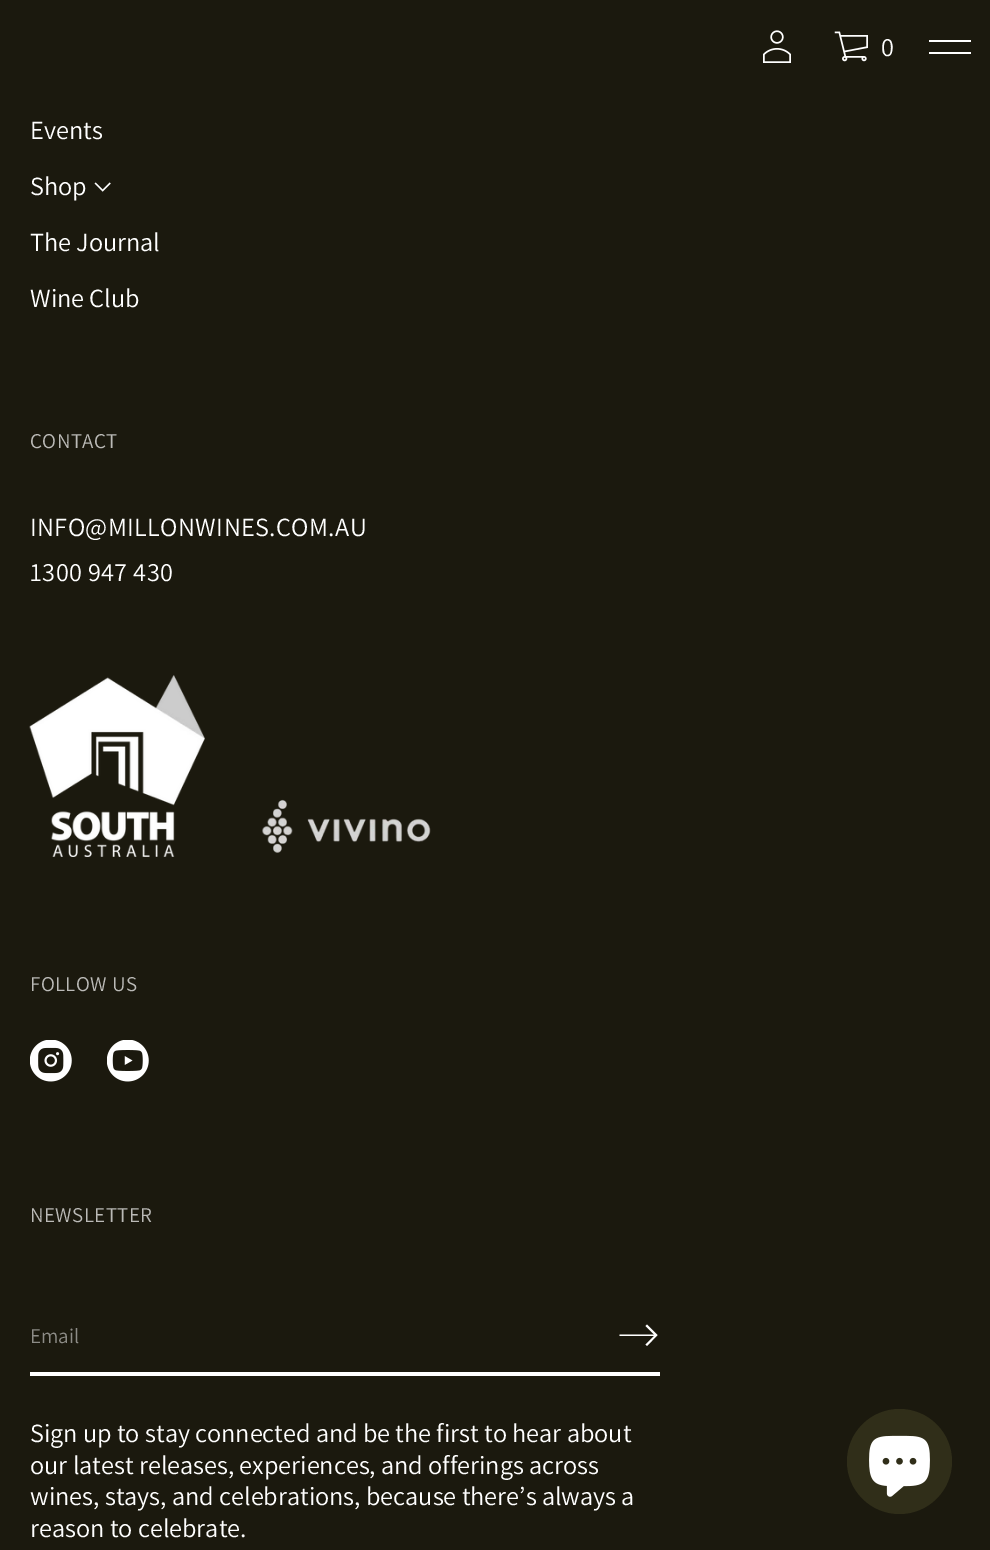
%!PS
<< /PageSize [990 1550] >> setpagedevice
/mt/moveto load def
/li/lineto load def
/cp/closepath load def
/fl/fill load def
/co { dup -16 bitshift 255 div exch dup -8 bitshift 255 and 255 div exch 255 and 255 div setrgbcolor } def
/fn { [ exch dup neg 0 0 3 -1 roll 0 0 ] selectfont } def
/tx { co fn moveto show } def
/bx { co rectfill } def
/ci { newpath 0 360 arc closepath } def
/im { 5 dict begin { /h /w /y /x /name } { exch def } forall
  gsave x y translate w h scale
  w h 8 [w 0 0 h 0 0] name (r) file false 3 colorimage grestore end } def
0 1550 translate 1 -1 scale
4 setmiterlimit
0 0 990 1550 16#1B190E bx
(media/1.raw) 763 30 28 33 im
(media/2.raw) 834 31 34 31 im
16#FFFFFF co
929 40 mt 929 42 li 971 42 li 971 40 li cp 929 54 mt 971 54 li 971 52 li 929 52 li cp fl
(media/3.raw) 94 182 17 10 im
(media/4.raw) 29 675 176 182 im
(media/5.raw) 262 799 169 54 im
(media/6.raw) 30 1040 42 42 im
(media/7.raw) 107 1040 42 42 im
30 1372 630 4 16#FFFFFF bx
645.5 1326 mt 654 1334.5 li 619.5 1334.5 li 619.5 1336 li 654 1336 li 645.5 1344.5 li 647 1346 li 657.5 1335 li 647 1324.5 li cp fl
16#302E19 co
899.5 1461.5 52.5 ci fl
(media/8.raw) 869 1435 61 62 im
(0) 881 56 /Assistant-Regular 26.25 16#FFFFFF tx
(Events) 30 139 /Assistant-Regular 26.25 16#FFFFFF tx
(Shop) 30 195 /Assistant-Regular 26.25 16#FFFFFF tx
(The Journal) 30 251 /Assistant-Regular 26.25 16#FFFFFF tx
(Wine Club) 30 307 /Assistant-Regular 26.25 16#FFFFFF tx
/Assistant-Regular 21 fn
16#BBBAB7 co
30 448 mt .4 0 (CONTACT) ashow
/Assistant-Regular 26.25 fn
16#FFFFFF co
30 536 mt .4 0 (INFO@MILLONWINES.COM.AU) ashow
30 581 mt .4 0 (1300 947 430) ashow
/Assistant-Regular 21 fn
16#BBBAB7 co
30 991 mt .4 0 (FOLLOW US) ashow
30 1222 mt .4 0 (NEWSLETTER) ashow
(Email) 30 1343 /Assistant-Regular 21 16#8D8C87 tx
(Sign up to stay connected and be the first to hear about) 30 1442 /Assistant-Regular 26.25 16#FFFFFF tx
(our latest releases, experiences, and offerings across) 30 1474 /Assistant-Regular 26.25 16#FFFFFF tx
(wines, stays, and celebrations, because there’s always a) 30 1505 /Assistant-Regular 26.25 16#FFFFFF tx
(reason to celebrate.) 30 1537 /Assistant-Regular 26.25 16#FFFFFF tx
showpage
